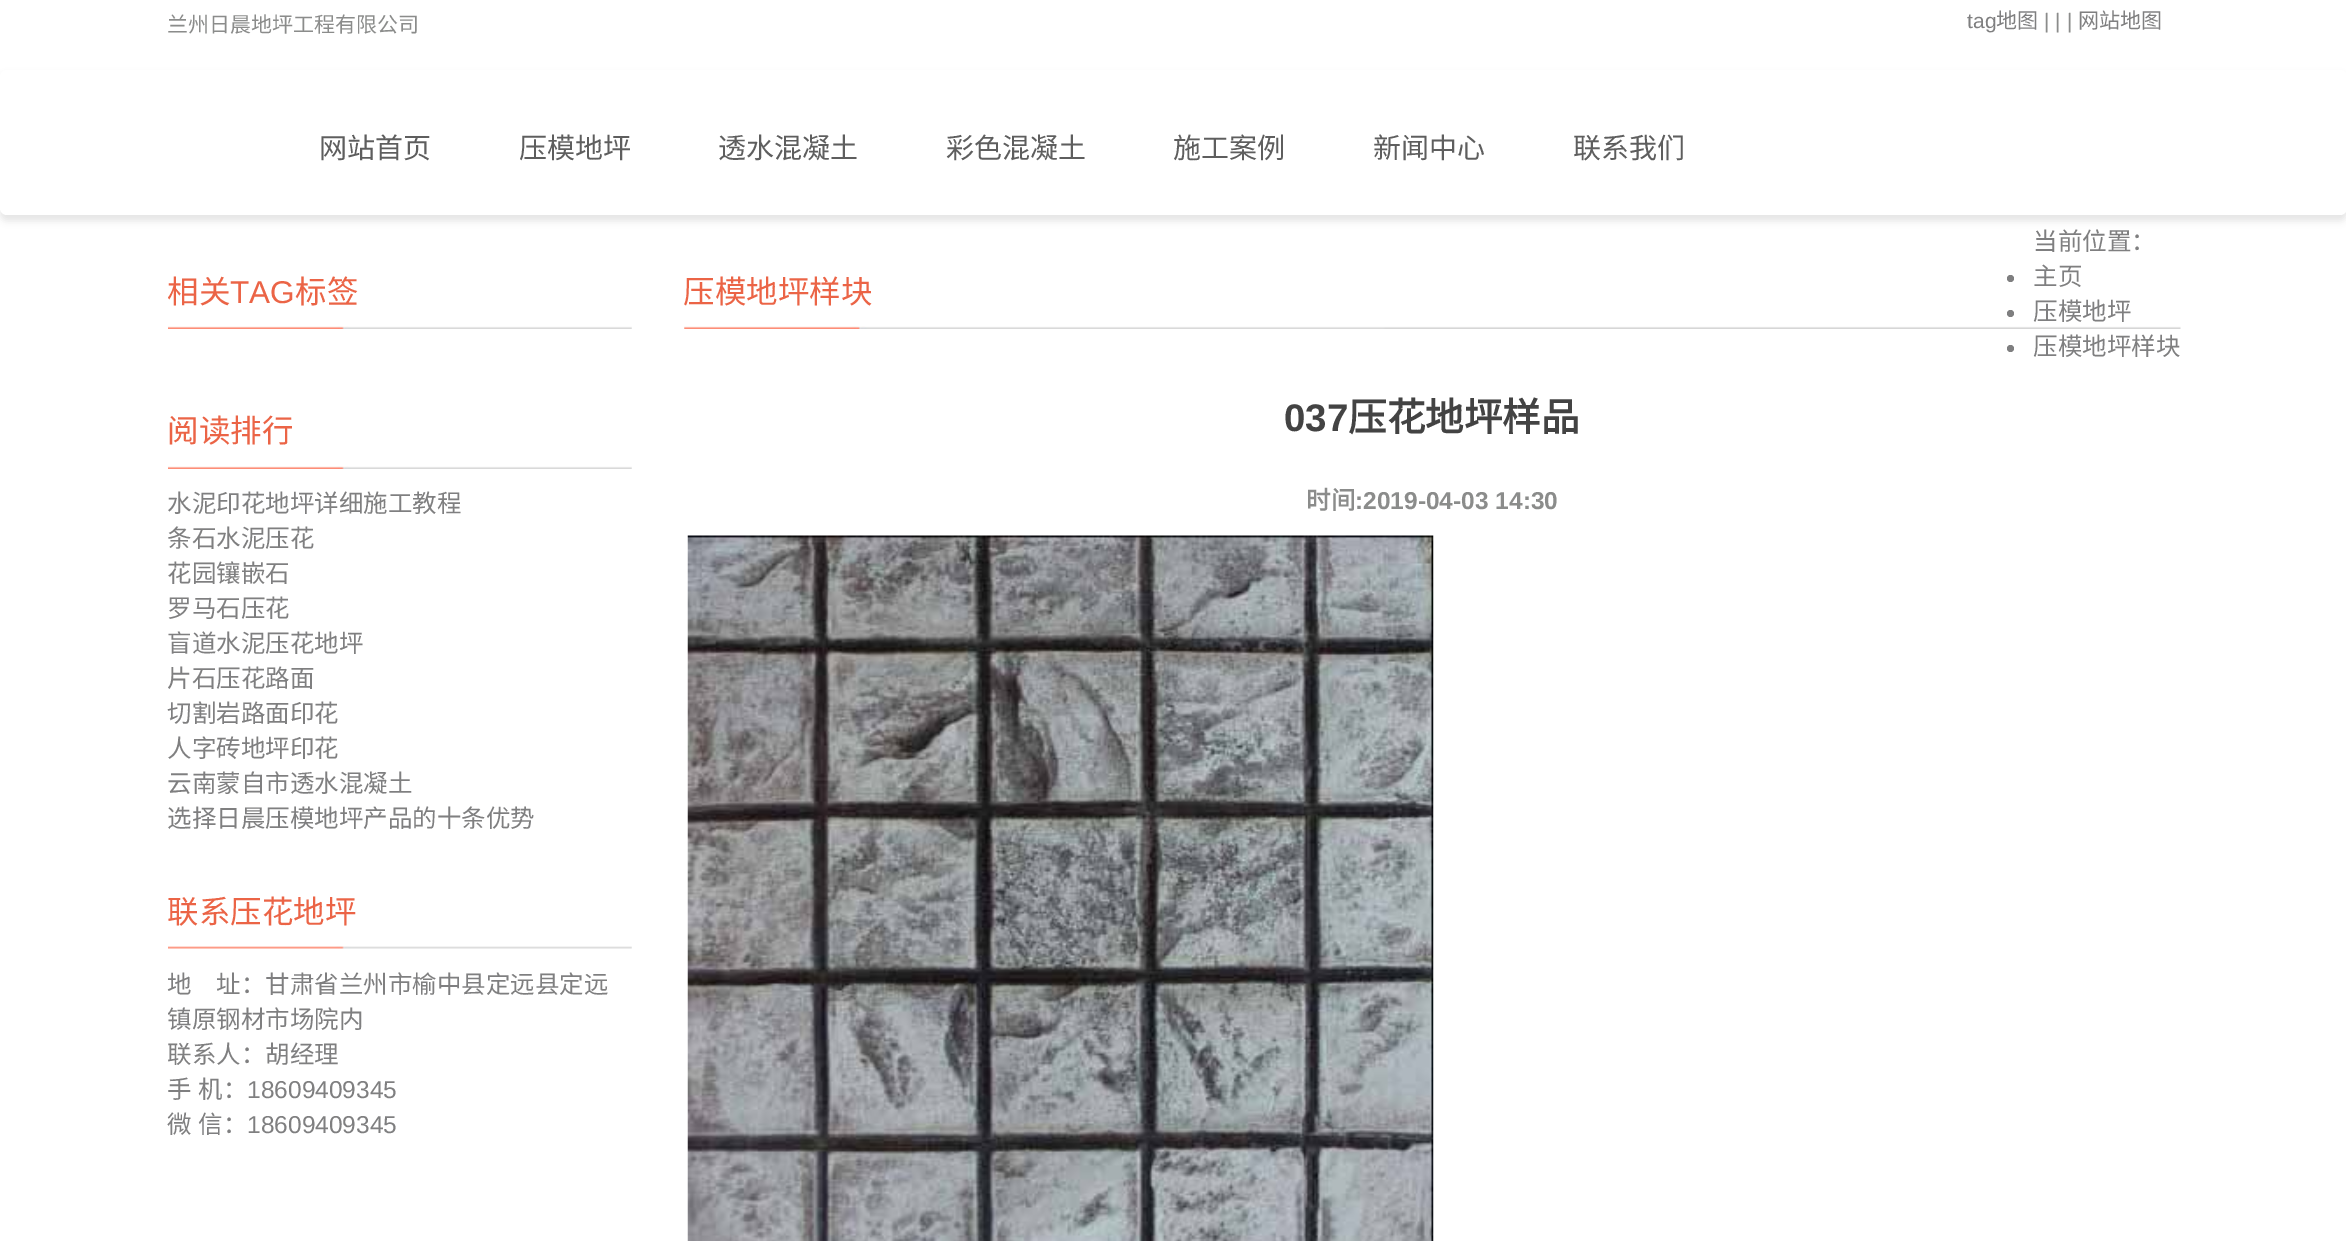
%!PS
<< /PageSize [2346 1241] /PageUsesTransparency true >> setpagedevice
/fl/fill load def
/co { dup -16 bitshift 255 div exch dup -8 bitshift 255 and 255 div exch 255 and 255 div setrgbcolor } def
/fn { [ exch dup neg 0 0 3 -1 roll 0 0 ] selectfont } def
/tx { co fn moveto show } def
/bx { co rectfill } def
/al { dup .setfillconstantalpha .setstrokeconstantalpha } def
/ci { newpath 0 360 arc closepath } def
/rr { 5 dict begin { /r /h /w /y /x } { exch def } forall
  x r add y moveto x w add y 2 copy h add r arct x w add y h add x 1 index r arct
  x y h add x y r arct x y 2 copy exch w add exch r arct closepath end } def
/sh { 12 dict begin { /a /b /q /h /w /y /x } { exch def } forall gsave /was 0 def
  9 -2 -9 { dup b mul 4 div /e exch def 1 sub .425 mul 2.718 exch exp 1 add a .99 .min exch div /now exch def
    1 1 now sub 1 was sub div sub al /was now def
    w h .min e 2 mul add 0 gt { x e sub y e sub w e 2 mul add h e 2 mul add
      q e add b .6 mul add w h .min 2 div e add .min 0 .max rr fill } if } for grestore end } def
/im { 5 dict begin { /h /w /y /x /name } { exch def } forall
  gsave x y translate w h scale
  w h 8 [w 0 0 h 0 0] name (r) file false 3 colorimage grestore end } def
0 .pushpdf14devicefilter
0 1241 translate 1 -1 scale
4 setmiterlimit
0 0 2346 1241 16#FFFFFF bx
16#000000 co
0 75 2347 146 7 3.5 .1 sh
16#FFFFFF co
0 70 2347 145 7 rr fl
(media/1.raw) 168 326 464 3 im
(media/1.raw) 168 466 464 3 im
(media/2.raw) 168 946 464 3 im
(media/3.raw) 684 326 1497 3 im
16#7F7F80 co
2010.5 278.5 3.5 ci fl
2010.5 313.5 3.5 ci fl
2010.5 348.5 3.5 ci fl
(media/4.raw) 687 535 747 706 im
(兰州日晨地坪工程有限公司) 167 32 /NotoSansCJKSC-Regular 21 16#8B8C8B tx
(tag) 1967 28 /LiberationSans-Regular 21 16#7F7F80 tx
(地图) 1996 28 /NotoSansCJKSC-Regular 21 16#7F7F80 tx
(| | |) 2044 28 /LiberationSans-Regular 21 16#8B8C8B tx
(网站地图) 2078 28 /NotoSansCJKSC-Regular 21 16#7F7F80 tx
(网站首页) 319 158 /NotoSansCJKSC-Regular 28 16#5E5E5E tx
(压模地坪) 519 158 /NotoSansCJKSC-Regular 28 16#5E5E5E tx
(透水混凝土) 718 158 /NotoSansCJKSC-Regular 28 16#5E5E5E tx
(彩色混凝土) 946 158 /NotoSansCJKSC-Regular 28 16#5E5E5E tx
(施工案例) 1173 158 /NotoSansCJKSC-Regular 28 16#5E5E5E tx
(新闻中心) 1373 158 /NotoSansCJKSC-Regular 28 16#5E5E5E tx
(联系我们) 1573 158 /NotoSansCJKSC-Regular 28 16#5E5E5E tx
(相关) 167 303 /NotoSansCJKSC-Regular 31.5 16#EB6446 tx
(TAG) 230 303 /LiberationSans-Regular 31.5 16#EB6446 tx
(标签) 295 303 /NotoSansCJKSC-Regular 31.5 16#EB6446 tx
(阅读排行) 167 442 /NotoSansCJKSC-Regular 31.5 16#EB6446 tx
(水泥印花地坪详细施工教程) 167 512 /NotoSansCJKSC-Regular 24.5 16#7F7F80 tx
(条石水泥压花) 167 547 /NotoSansCJKSC-Regular 24.5 16#7F7F80 tx
(花园镶嵌石) 167 582 /NotoSansCJKSC-Regular 24.5 16#7F7F80 tx
(罗马石压花) 167 617 /NotoSansCJKSC-Regular 24.5 16#7F7F80 tx
(盲道水泥压花地坪) 167 652 /NotoSansCJKSC-Regular 24.5 16#7F7F80 tx
(片石压花路面) 167 687 /NotoSansCJKSC-Regular 24.5 16#7F7F80 tx
(切割岩路面印花) 167 722 /NotoSansCJKSC-Regular 24.5 16#7F7F80 tx
(人字砖地坪印花) 167 757 /NotoSansCJKSC-Regular 24.5 16#7F7F80 tx
(云南蒙自市透水混凝土) 167 792 /NotoSansCJKSC-Regular 24.5 16#7F7F80 tx
(选择日晨压模地坪产品的十条优势) 167 827 /NotoSansCJKSC-Regular 24.5 16#7F7F80 tx
(联系压花地坪) 167 923 /NotoSansCJKSC-Regular 31.5 16#EB6446 tx
(地　址：甘肃省兰州市榆中县定远县定远) 167 993 /NotoSansCJKSC-Regular 24.5 16#7F7F80 tx
(镇原钢材市场院内) 167 1028 /NotoSansCJKSC-Regular 24.5 16#7F7F80 tx
(联系人：胡经理) 167 1063 /NotoSansCJKSC-Regular 24.5 16#7F7F80 tx
(手) 167 1098 /NotoSansCJKSC-Regular 24.5 16#7F7F80 tx
(机：) 198 1098 /NotoSansCJKSC-Regular 24.5 16#7F7F80 tx
(18609409345) 247 1098 /LiberationSans-Regular 24.5 16#7F7F80 tx
(微) 167 1133 /NotoSansCJKSC-Regular 24.5 16#7F7F80 tx
(信：) 198 1133 /NotoSansCJKSC-Regular 24.5 16#7F7F80 tx
(18609409345) 247 1133 /LiberationSans-Regular 24.5 16#7F7F80 tx
(压模地坪样块) 683 303 /NotoSansCJKSC-Regular 31.5 16#EB6446 tx
(当前位置：) 2033 250 /NotoSansCJKSC-Regular 24.5 16#7F7F80 tx
(主页) 2033 285 /NotoSansCJKSC-Regular 24.5 16#7F7F80 tx
(压模地坪) 2033 320 /NotoSansCJKSC-Regular 24.5 16#7F7F80 tx
(压模地坪样块) 2033 355 /NotoSansCJKSC-Regular 24.5 16#7F7F80 tx
(037) 1284 431 /LiberationSans-Bold 38.5 16#434343 tx
(压花地坪样品) 1348 431 /NotoSansCJKSC-Bold 38.5 16#434343 tx
(时间) 1306 509 /NotoSansCJKSC-Bold 24.5 16#8B8C8B tx
(:2019-04-03 14:30) 1355 509 /LiberationSans-Bold 24.5 16#8B8C8B tx
.poppdf14devicefilter showpage
